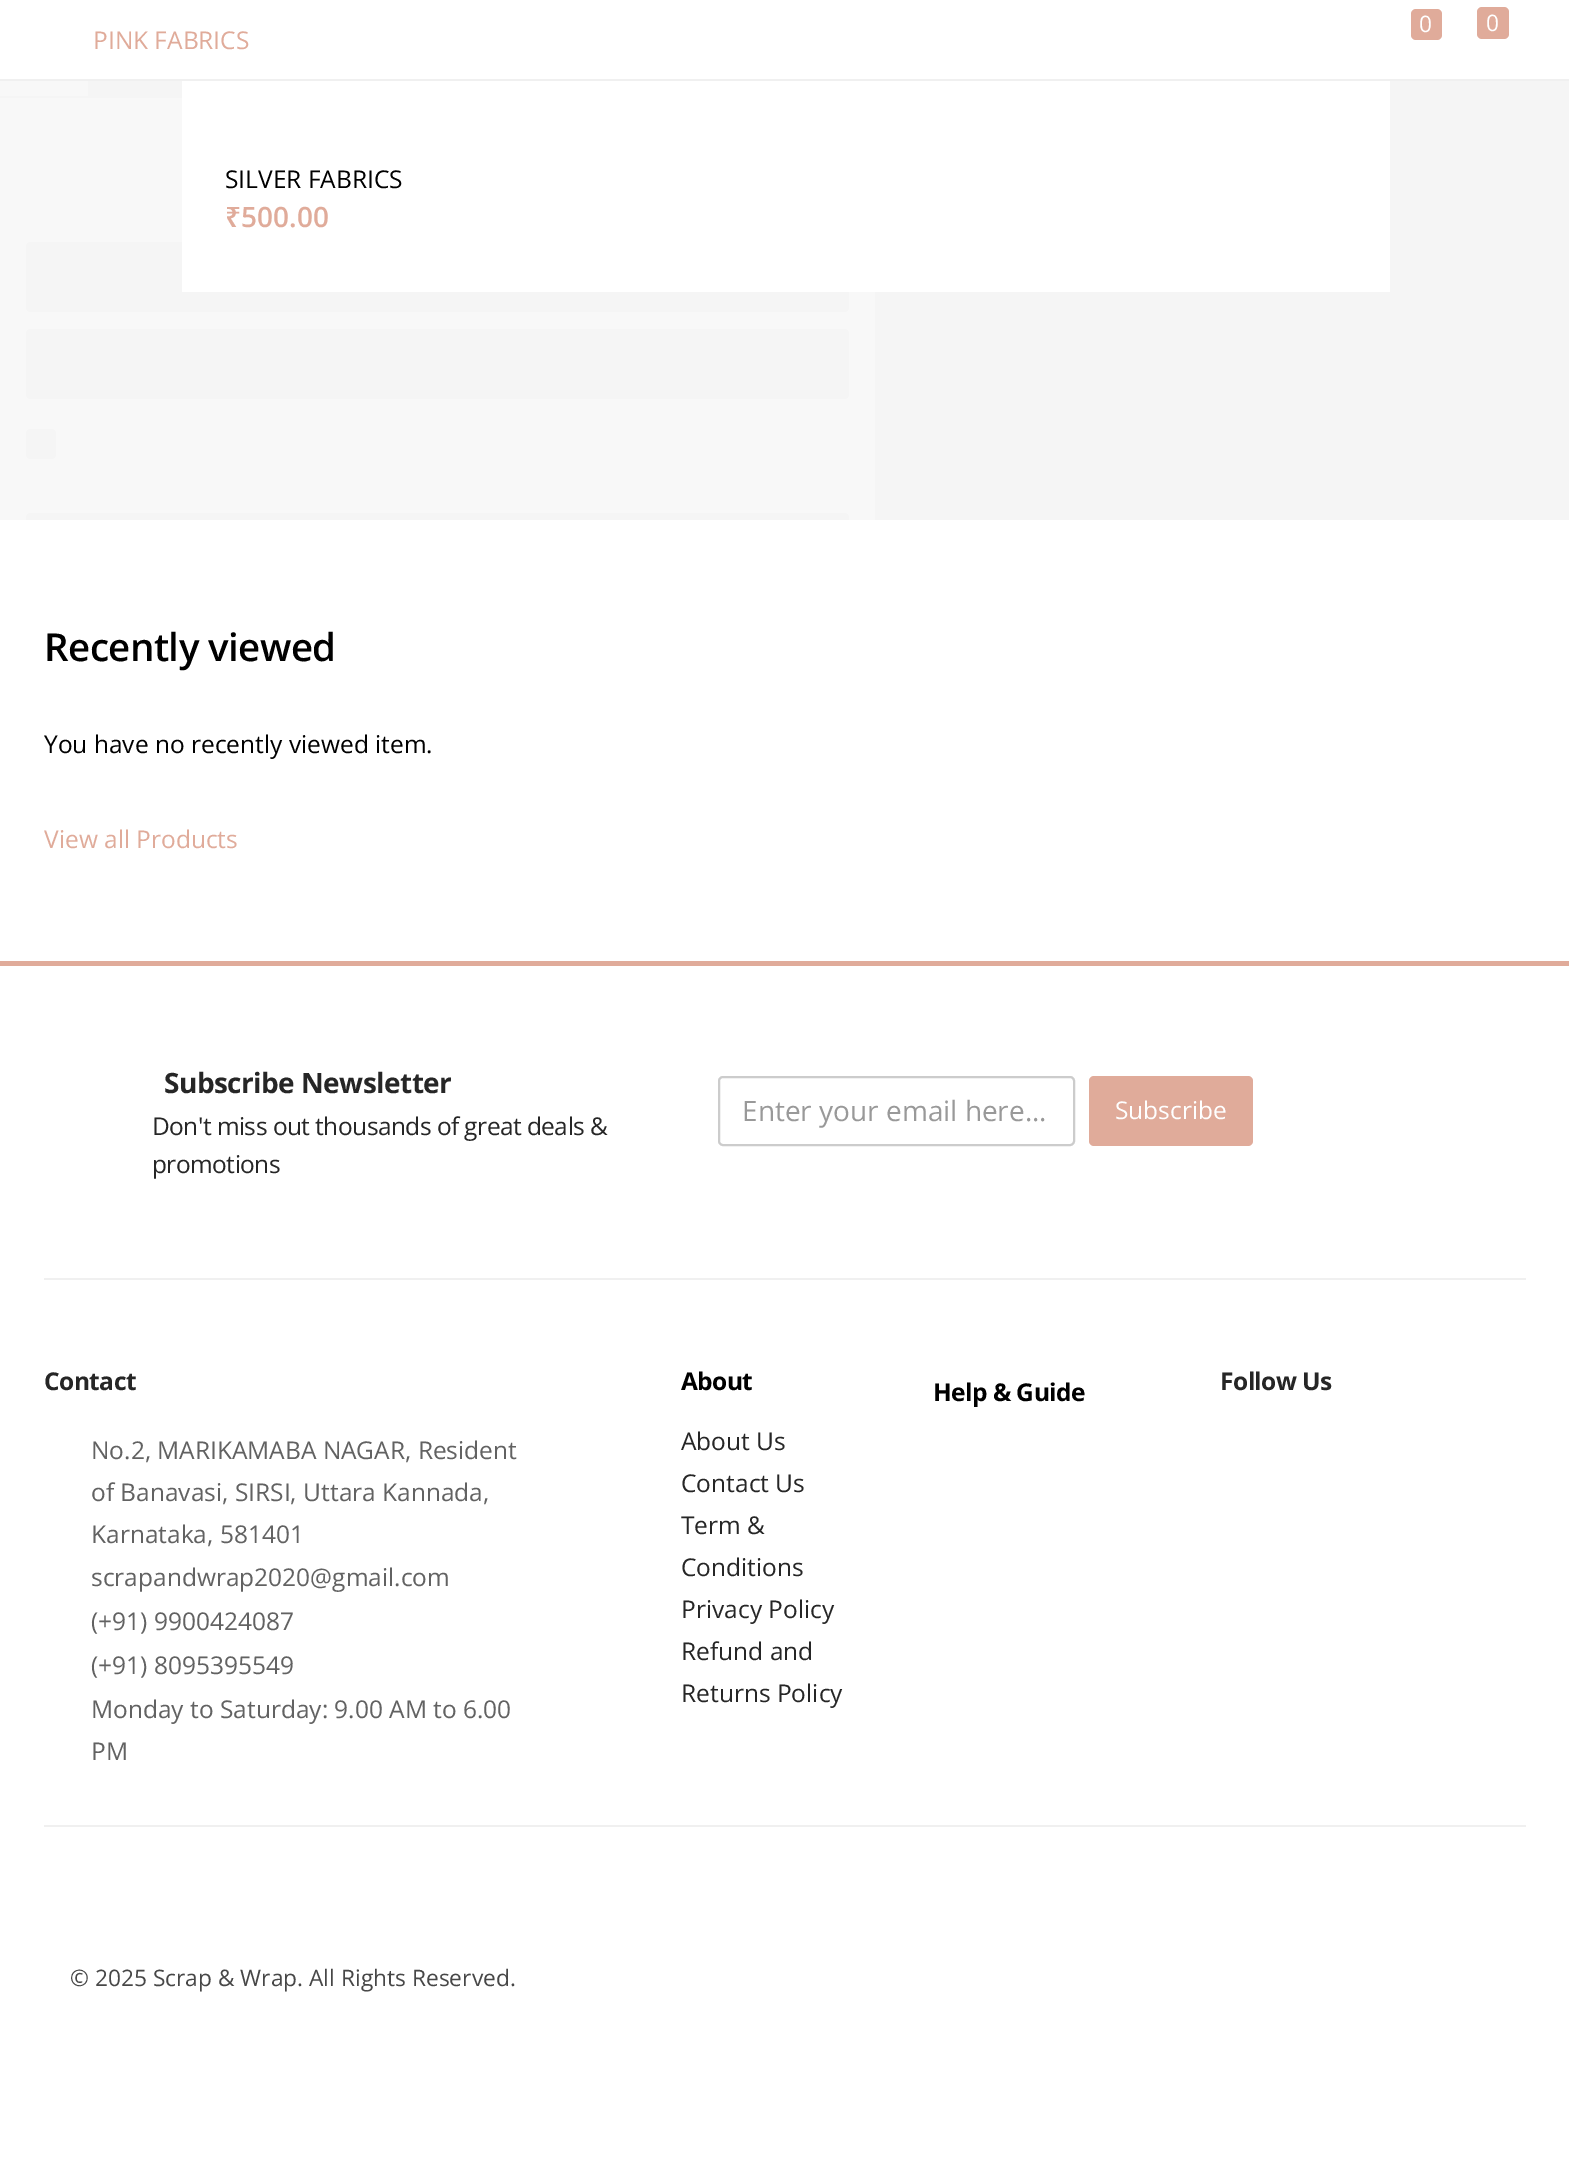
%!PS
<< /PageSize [1569 2183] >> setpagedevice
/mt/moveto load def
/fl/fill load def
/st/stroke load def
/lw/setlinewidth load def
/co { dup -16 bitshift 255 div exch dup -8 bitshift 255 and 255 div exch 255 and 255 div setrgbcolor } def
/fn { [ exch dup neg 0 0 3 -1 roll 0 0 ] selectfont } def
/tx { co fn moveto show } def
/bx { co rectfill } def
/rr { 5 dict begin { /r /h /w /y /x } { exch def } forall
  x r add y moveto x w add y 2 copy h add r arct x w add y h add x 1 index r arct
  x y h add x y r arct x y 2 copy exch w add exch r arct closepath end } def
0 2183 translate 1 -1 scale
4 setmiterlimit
0 0 1569 2183 16#F5F5F5 bx
0 0 1569 79 16#FFFFFF bx
0 79 1569 2 16#F0F0F0 bx
16#E0AB9A co
1411 9 31 31 5 rr fl
1477 7 32 32 5 rr fl
0 81 875 439 16#F8F8F8 bx
0 96 182 2 16#F5F5F5 bx
88 81 94 15 16#F5F5F5 bx
26 242 823 70 5 rr fl
26 329 823 70 5 rr fl
26 429 30 30 5 rr fl
26 513 823 70 5 rr fl
182 81 1208 211 16#FFFFFF bx
0 520 1569 441 16#FFFFFF bx
0 966 1569 1217 16#FFFFFF bx
0 961 1569 5 16#E0AB9A bx
16#CCCCCC co
2 lw
719 1077 355 68 4 rr st
16#E0AB9A co
1089 1076 164 70 5 rr fl
44 1278 1482 2 16#F0F0F0 bx
44 1825 1482 2 16#F0F0F0 bx
(0) 1419 32 /OpenSans-Regular 22.75 16#FFFFFF tx
(0) 1486 31 /OpenSans-Regular 22.75 16#FFFFFF tx
(PINK FABRICS) 93 49 /OpenSans-Regular 24.5 16#E0AB9A tx
(SILVER FABRICS) 225 188 /OpenSans-Regular 24.5 16#000000 tx
(₹) 225 227 /NotoSans-SemiBold 28 16#E0AB9A tx
(500.00) 241 227 /OpenSans-SemiBold 28 16#E0AB9A tx
/OpenSans-SemiBold 38.5 fn
16#000000 co
44 661 mt -.55 0 (Recently viewed) ashow
(You have no recently viewed item.) 44 753 /OpenSans-Regular 24.5 16#000000 tx
(View all Products) 44 848 /OpenSans-Regular 24.5 16#E0AB9A tx
/OpenSans-Bold 28 fn
16#262626 co
164 1093 mt -.55 0 (Subscribe Newsletter) ashow
/OpenSans-Regular 24.5 fn
152 1135 mt -.55 0 (Don't miss out thousands of great deals &) ashow
152 1173 mt -.55 0 (promotions) ashow
(Enter your email here...) 742 1121 /OpenSans-Regular 28 16#999999 tx
(Subscribe) 1115 1119 /OpenSans-Regular 24.5 16#FFFFFF tx
/OpenSans-Bold 24.5 fn
16#262626 co
44 1390 mt -.55 0 (Contact) ashow
(No.2, MARIKAMABA NAGAR, Resident) 91 1459 /OpenSans-Regular 24.5 16#626262 tx
(of Banavasi, SIRSI, Uttara Kannada,) 91 1501 /OpenSans-Regular 24.5 16#626262 tx
(Karnataka, 581401) 91 1543 /OpenSans-Regular 24.5 16#626262 tx
(scrapandwrap2020@gmail.com) 91 1586 /OpenSans-Regular 24.5 16#626262 tx
(\(+91\) 9900424087) 91 1630 /OpenSans-Regular 24.5 16#626262 tx
(\(+91\) 8095395549) 91 1674 /OpenSans-Regular 24.5 16#626262 tx
(Monday to Saturday: 9.00 AM to 6.00) 91 1718 /OpenSans-Regular 24.5 16#626262 tx
(PM) 91 1760 /OpenSans-Regular 24.5 16#626262 tx
/OpenSans-Bold 24.5 fn
16#000000 co
681 1390 mt -.55 0 (About) ashow
(About Us) 681 1450 /OpenSans-Regular 24.5 16#262626 tx
(Contact Us) 681 1492 /OpenSans-Regular 24.5 16#262626 tx
(Term &) 681 1534 /OpenSans-Regular 24.5 16#262626 tx
(Conditions) 681 1576 /OpenSans-Regular 24.5 16#262626 tx
(Privacy Policy) 681 1618 /OpenSans-Regular 24.5 16#262626 tx
(Refund and) 681 1660 /OpenSans-Regular 24.5 16#262626 tx
(Returns Policy) 681 1702 /OpenSans-Regular 24.5 16#262626 tx
/OpenSans-Bold 24.5 fn
16#000000 co
933 1401 mt -.55 0 (Help & Guide) ashow
16#262626 co
1220 1390 mt -.55 0 (Follow Us) ashow
(© 2025 Scrap & Wrap. All Rights Reserved.) 70 1986 /OpenSans-Regular 22.75 16#474747 tx
showpage
